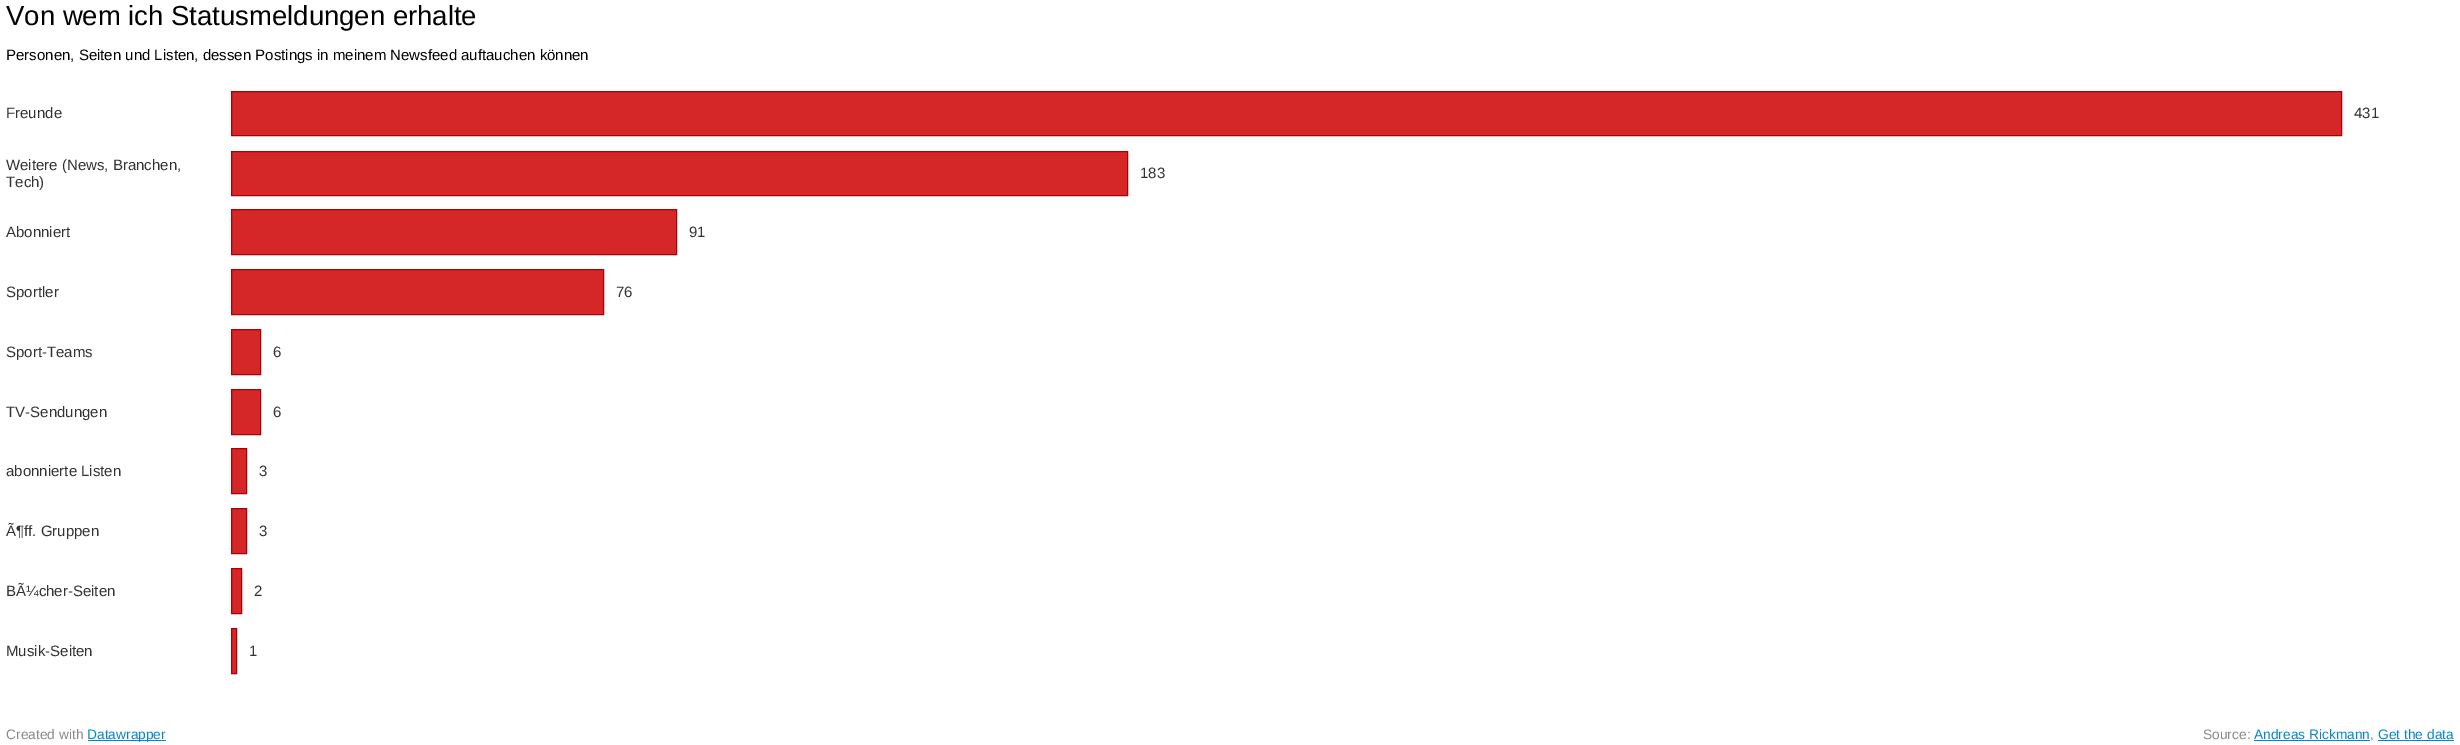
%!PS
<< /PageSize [2460 745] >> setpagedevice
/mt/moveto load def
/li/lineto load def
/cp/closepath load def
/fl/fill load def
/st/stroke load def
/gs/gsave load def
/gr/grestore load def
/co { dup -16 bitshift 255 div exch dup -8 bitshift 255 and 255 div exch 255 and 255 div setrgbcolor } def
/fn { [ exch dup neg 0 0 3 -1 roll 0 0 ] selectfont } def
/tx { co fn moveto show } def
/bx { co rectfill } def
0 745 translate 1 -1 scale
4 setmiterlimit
0 0 2460 745 16#FFFFFF bx
16#D62728 co
231.5 91.5 mt 2341.5 91.5 li 2341.5 135.5 li 231.5 135.5 li cp gs fl gr
16#A90009 co
st
16#D62728 co
231.5 151.5 mt 1127.5 151.5 li 1127.5 195.5 li 231.5 195.5 li cp gs fl gr
16#A90009 co
st
16#D62728 co
231.5 209.5 mt 676.5 209.5 li 676.5 254.5 li 231.5 254.5 li cp gs fl gr
16#A90009 co
st
16#D62728 co
231.5 269.5 mt 603.5 269.5 li 603.5 314.5 li 231.5 314.5 li cp gs fl gr
16#A90009 co
st
16#D62728 co
231.5 329.5 mt 260.5 329.5 li 260.5 374.5 li 231.5 374.5 li cp gs fl gr
16#A90009 co
st
16#D62728 co
231.5 389.5 mt 260.5 389.5 li 260.5 434.5 li 231.5 434.5 li cp gs fl gr
16#A90009 co
st
16#D62728 co
231.5 448.5 mt 246.5 448.5 li 246.5 493.5 li 231.5 493.5 li cp gs fl gr
16#A90009 co
st
16#D62728 co
231.5 508.5 mt 246.5 508.5 li 246.5 553.5 li 231.5 553.5 li cp gs fl gr
16#A90009 co
st
16#D62728 co
231.5 568.5 mt 241.5 568.5 li 241.5 613.5 li 231.5 613.5 li cp gs fl gr
16#A90009 co
st
16#D62728 co
231.5 628.5 mt 236.5 628.5 li 236.5 673.5 li 231.5 673.5 li cp gs fl gr
16#A90009 co
st
88 740 78 1 16#0088CC bx
2254 740 116 1 16#0088CC bx
2378 740 76 1 16#0088CC bx
(Von wem ich Statusmeldungen erhalte) 6 25 /LiberationSans-Regular 27.5 16#000000 tx
(Personen, Seiten und Listen, dessen Postings in meinem Newsfeed auftauchen können) 6 60 /LiberationSans-Regular 15 16#000000 tx
(Freunde) 6 118 /LiberationSans-Regular 15 16#333333 tx
(431) 2354 118 /LiberationSans-Regular 15 16#333333 tx
(Weitere \(News, Branchen,) 6 170 /LiberationSans-Regular 15 16#333333 tx
(Tech\)) 6 187 /LiberationSans-Regular 15 16#333333 tx
(183) 1140 178 /LiberationSans-Regular 15 16#333333 tx
(Abonniert) 6 237 /LiberationSans-Regular 15 16#333333 tx
(91) 689 237 /LiberationSans-Regular 15 16#333333 tx
(Sportler) 6 297 /LiberationSans-Regular 15 16#333333 tx
(76) 616 297 /LiberationSans-Regular 15 16#333333 tx
(Sport-Teams) 6 357 /LiberationSans-Regular 15 16#333333 tx
(6) 273 357 /LiberationSans-Regular 15 16#333333 tx
(TV-Sendungen) 6 417 /LiberationSans-Regular 15 16#333333 tx
(6) 273 417 /LiberationSans-Regular 15 16#333333 tx
(abonnierte Listen) 6 476 /LiberationSans-Regular 15 16#333333 tx
(3) 259 476 /LiberationSans-Regular 15 16#333333 tx
(Ã¶ff. Gruppen) 6 536 /LiberationSans-Regular 15 16#333333 tx
(3) 259 536 /LiberationSans-Regular 15 16#333333 tx
(BÃ¼cher-Seiten) 6 596 /LiberationSans-Regular 15 16#333333 tx
(2) 254 596 /LiberationSans-Regular 15 16#333333 tx
(Musik-Seiten) 6 656 /LiberationSans-Regular 15 16#333333 tx
(1) 249 656 /LiberationSans-Regular 15 16#333333 tx
(Created with) 6 739 /LiberationSans-Regular 13.75 16#888888 tx
(Datawrapper) 87 739 /LiberationSans-Regular 13.75 16#0088CC tx
(Source:) 2203 739 /LiberationSans-Regular 13.75 16#888888 tx
(Andreas Rickmann) 2254 739 /LiberationSans-Regular 13.75 16#0088CC tx
(,) 2370 739 /LiberationSans-Regular 13.75 16#888888 tx
(Get the data) 2378 739 /LiberationSans-Regular 13.75 16#0088CC tx
showpage
